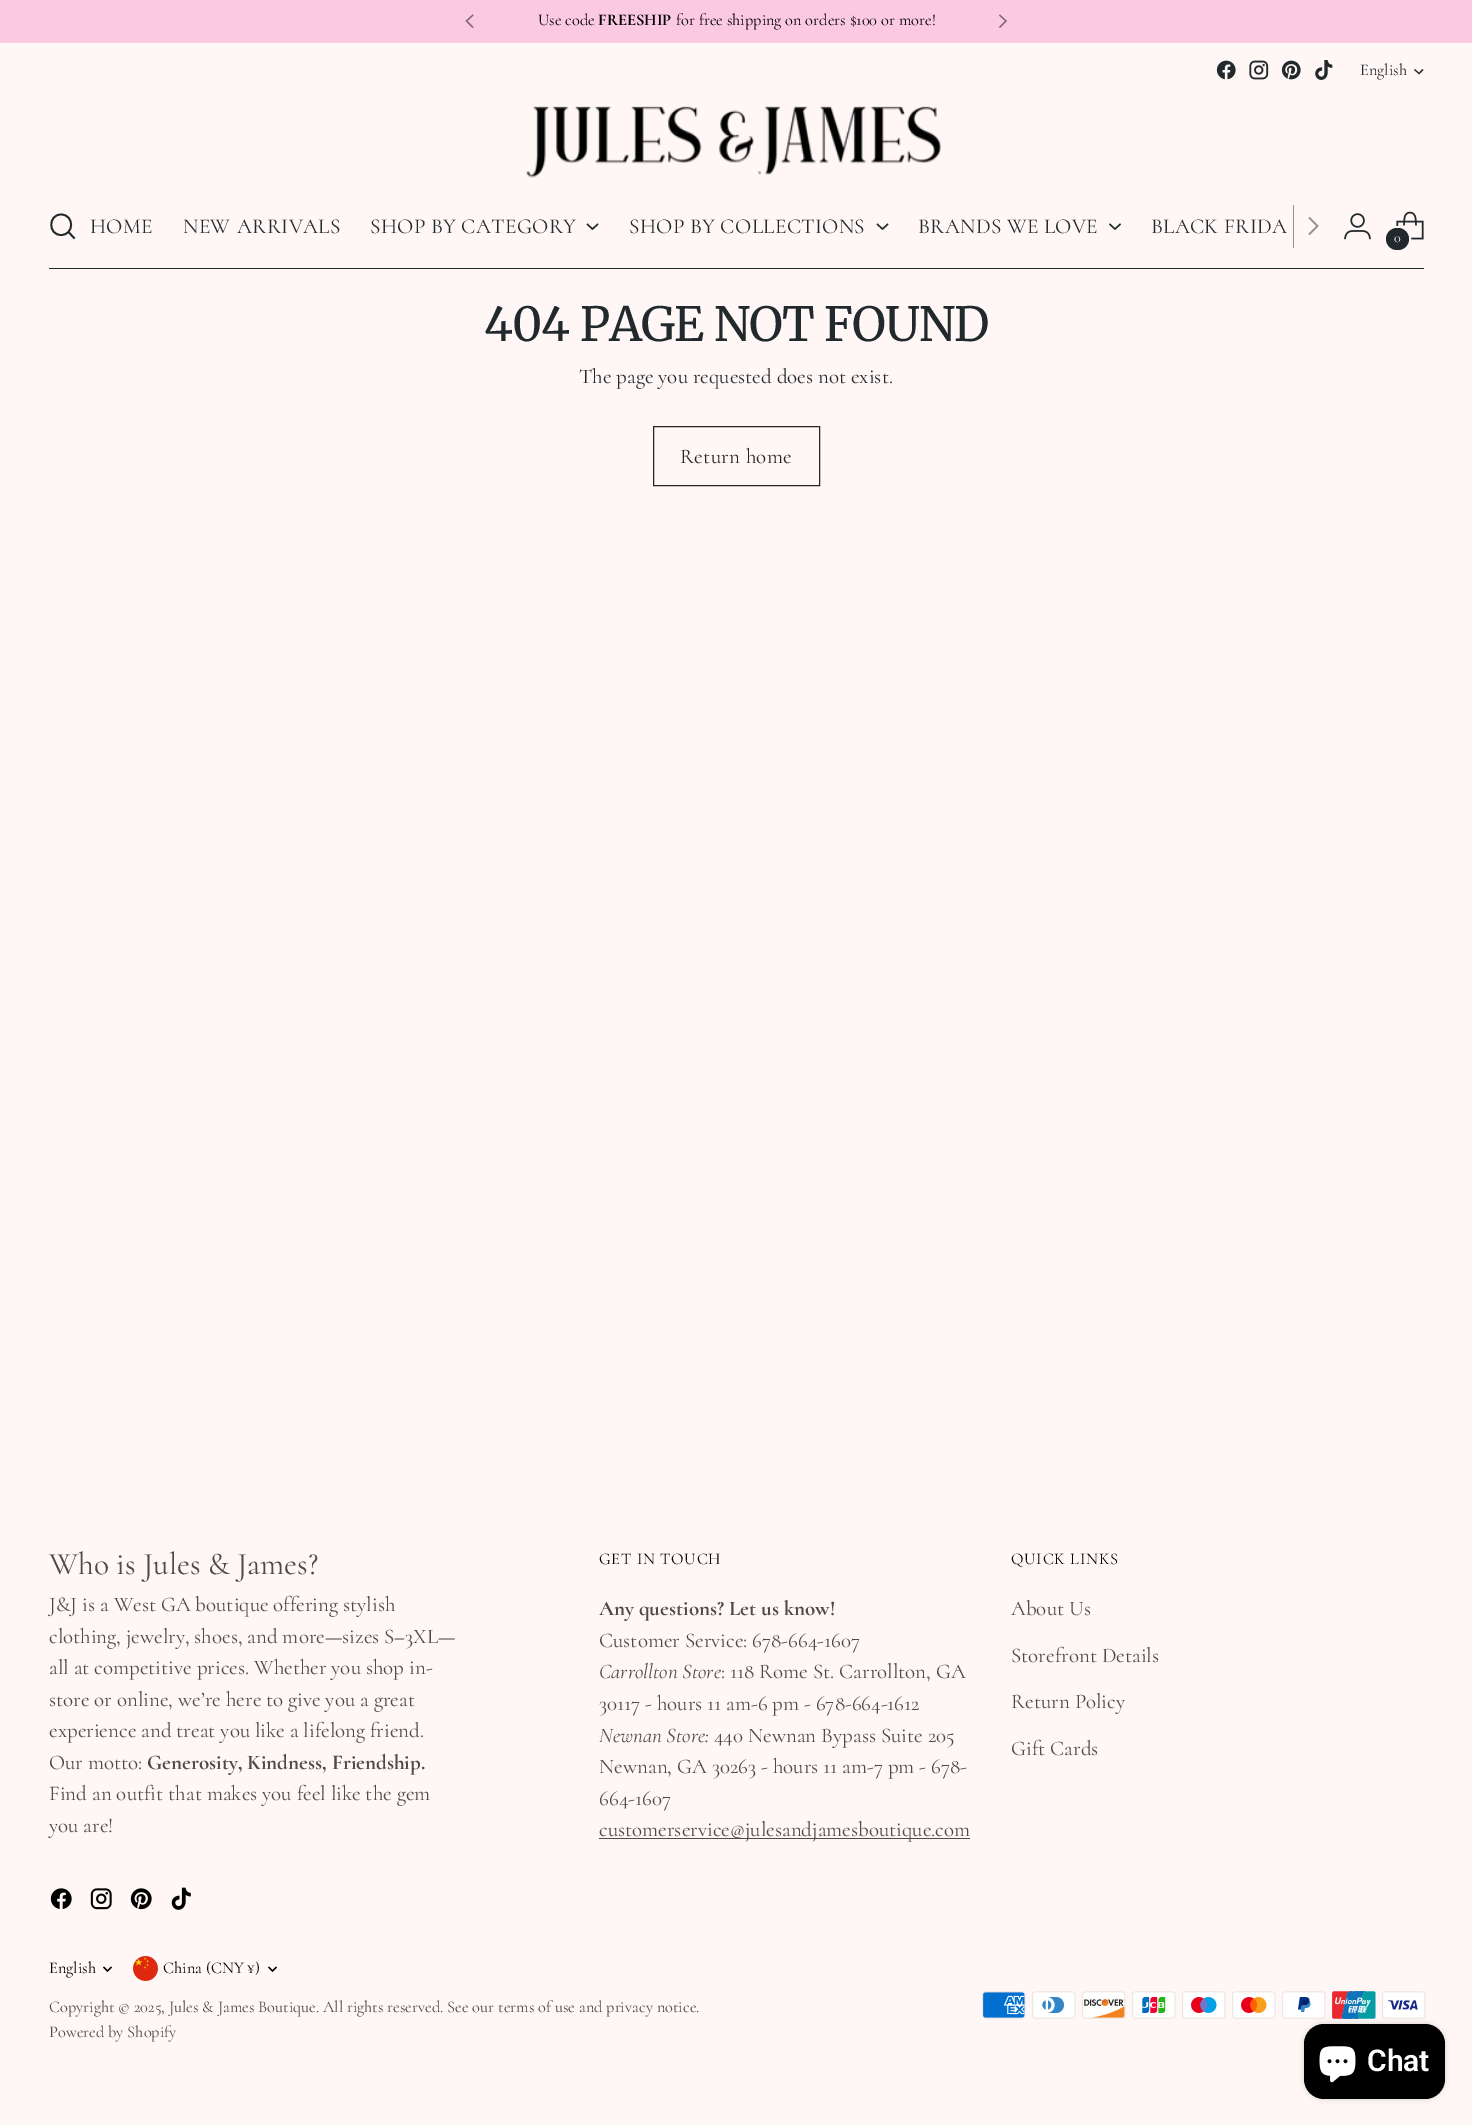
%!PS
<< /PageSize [1472 2125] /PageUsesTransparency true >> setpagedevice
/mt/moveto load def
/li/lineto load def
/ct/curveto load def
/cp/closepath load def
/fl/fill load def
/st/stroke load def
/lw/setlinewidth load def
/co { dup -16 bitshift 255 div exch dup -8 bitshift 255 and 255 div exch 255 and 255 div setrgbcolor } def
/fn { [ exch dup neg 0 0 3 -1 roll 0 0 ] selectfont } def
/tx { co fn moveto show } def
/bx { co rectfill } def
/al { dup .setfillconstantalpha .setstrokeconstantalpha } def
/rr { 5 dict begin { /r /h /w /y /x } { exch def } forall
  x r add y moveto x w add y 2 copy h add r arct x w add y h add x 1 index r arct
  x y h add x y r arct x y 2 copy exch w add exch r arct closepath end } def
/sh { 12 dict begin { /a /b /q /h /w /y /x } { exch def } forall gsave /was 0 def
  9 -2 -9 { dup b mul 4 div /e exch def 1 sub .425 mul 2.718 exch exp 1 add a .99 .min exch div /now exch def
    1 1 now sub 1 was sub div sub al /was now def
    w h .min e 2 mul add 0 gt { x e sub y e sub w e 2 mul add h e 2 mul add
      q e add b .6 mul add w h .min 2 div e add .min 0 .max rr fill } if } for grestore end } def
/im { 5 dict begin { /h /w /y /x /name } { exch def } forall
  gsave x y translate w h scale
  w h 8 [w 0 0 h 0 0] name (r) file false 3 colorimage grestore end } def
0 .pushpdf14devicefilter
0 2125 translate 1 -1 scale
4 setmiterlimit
0 0 1472 2125 16#FFF6F6 bx
538 0 934 43 16#FCC9E2 bx
16#7E6571 co
1.2 lw
999.5 27.5 mt 1006 21 li 999.5 15 li st
49 268 1375 1 16#22292D bx
(media/1.raw) 1216 60 20 20 im
(media/2.raw) 1249 60 20 20 im
(media/3.raw) 1281 60 20 20 im
(media/4.raw) 1315 60 18 20 im
1.1 lw
1414.5 69.5 mt 1419 73.5 li 1423 69.5 li st
(media/5.raw) 526 106 415 72 im
1.8 lw
1 setlinecap
61 235 mt 74.5 235 74.5 214.5 61 214.5 ct 48 214.5 48 235 61 235 ct cp st
0 setlinecap
68.5 232 mt 74.5 238.5 li st
1.4 lw
587 224 mt 592.5 229 li 598 224 li st
877 224 mt 882.5 229 li 888 224 li st
1109.5 224 mt 1115 229 li 1120.5 224 li st
1293 205 1 43 16#919092 bx
1.7 lw
1309 234.5 mt 1317.5 226 li 1309 217.5 li st
(media/6.raw) 1344 213 27 27 im
(media/7.raw) 1396 211 28 29 im
16#FFF6F6 co
2 lw
1386 227 24 25 12 rr st
16#22292D co
1386 228 23 22 11 rr fl
16#242526 co
1 lw
653.5 426.5 166 59 rectstroke
(media/8.raw) 50 1888 22 21 im
(media/9.raw) 90 1888 22 22 im
(media/10.raw) 130 1888 22 22 im
(media/11.raw) 171 1887 20 23 im
599 1838 371 1 16#4D4A4A bx
16#000000 co
1.1 lw
103.5 1967 mt 107.5 1971 li 111.5 1967 li st
(media/12.raw) 133 1956 25 25 im
268.5 1967 mt 272.5 1971 li 276.5 1967 li st
(media/13.raw) 982 1991 44 28 im
(media/14.raw) 1032 1991 44 28 im
(media/15.raw) 1082 1991 44 28 im
(media/16.raw) 1132 1991 44 28 im
(media/17.raw) 1182 1991 44 28 im
(media/18.raw) 1232 1991 44 28 im
(media/19.raw) 1282 1991 44 28 im
(media/20.raw) 1332 1991 44 28 im
(media/21.raw) 1382 1991 44 28 im
1304 2024 141 75 20 3 .15 sh
1304 2024 141 75 20 rr fl
(media/22.raw) 1319 2046 37 37 im
(Use code) 538 25 /Cormorant-Regular 16.35 16#000000 tx
0 0 538 43 16#FCC9E2 bx
16#7E6571 co
1.2 lw
473 15 mt 466.5 21 li 473 27.5 li st
(FREESHIP) 598 25 /Cormorant-Bold 16.35 16#000000 tx
(for free shipping on orders $100 or more!) 676 25 /Cormorant-Regular 16.35 16#000000 tx
(English) 1360 75 /Cormorant-Regular 16.35 16#22292D tx
/Cormorant-Regular 21.25 fn
90 233 mt .3 0 (HOME) ashow
183 233 mt 1 0 32 .3 0 (NEW ARRIVALS) awidthshow
370 233 mt .3 0 (SHOP BY CATEGORY) ashow
629 233 mt .3 0 (SHOP BY COLLECTIONS) ashow
918 233 mt .3 0 (BRANDS WE LOVE) ashow
1151 233 mt .3 0 (BLACK FRIDA) ashow
(0) 1394 242 /Cormorant-Regular 14 16#FFF6F6 tx
/Merriweather-Light 47 fn
16#22292D co
484 341 mt -.9 0 (404 PAGE NOT FOUND) ashow
(The page you requested does not exist.) 579 383 /Cormorant-Regular 21 16#22292D tx
16#242526 co
680 463 mt .3 0 (Return home) ashow
(Who is Jules & James?) 49 1574 /Cormorant-Regular 31.5 16#4D4A4A tx
(J&J is a West GA boutique offering stylish) 49 1611 /Cormorant-Regular 21 16#4D4A4A tx
(clothing, jewelry, shoes, and more—sizes S–3XL—) 49 1643 /Cormorant-Regular 21 16#4D4A4A tx
(all at competitive prices. Whether you shop in-) 49 1674 /Cormorant-Regular 21 16#4D4A4A tx
(store or online, we’re here to give you a great) 49 1706 /Cormorant-Regular 21 16#4D4A4A tx
(experience and treat you like a lifelong friend.) 49 1737 /Cormorant-Regular 21 16#4D4A4A tx
(Our motto:) 49 1769 /Cormorant-Regular 21 16#4D4A4A tx
(Generosity, Kindness, Friendship.) 147 1769 /Cormorant-Bold 21 16#4D4A4A tx
(Find an outfit that makes you feel like the gem) 49 1800 /Cormorant-Regular 21 16#4D4A4A tx
(you are!) 49 1832 /Cormorant-Regular 21 16#4D4A4A tx
/Cormorant-Regular 16.35 fn
16#000000 co
599 1564 mt .75 0 (GET IN TOUCH) ashow
(Any questions? Let us know!) 599 1615 /Cormorant-Bold 21 16#4D4A4A tx
(Customer Service: 678-664-1607) 599 1647 /Cormorant-Regular 21 16#4D4A4A tx
(Carrollton Store) 599 1678 /Cormorant-Italic 21 16#4D4A4A tx
(: 118 Rome St. Carrollton, GA) 721 1678 /Cormorant-Regular 21 16#4D4A4A tx
(30117 - hours 11 am-6 pm - 678-664-1612) 599 1710 /Cormorant-Regular 21 16#4D4A4A tx
(Newnan Store:) 599 1742 /Cormorant-Italic 21 16#4D4A4A tx
(440 Newnan Bypass Suite 205) 714 1742 /Cormorant-Regular 21 16#4D4A4A tx
(Newnan, GA 30263 - hours 11 am-7 pm - 678-) 599 1773 /Cormorant-Regular 21 16#4D4A4A tx
(664-1607) 599 1805 /Cormorant-Regular 21 16#4D4A4A tx
(customerservice@julesandjamesboutique.com) 599 1836 /Cormorant-Regular 21 16#4D4A4A tx
/Cormorant-Regular 16.35 fn
16#000000 co
1011 1564 mt .75 0 (QUICK LINKS) ashow
(About Us) 1011 1615 /Cormorant-Regular 21 16#4D4A4A tx
(Storefront Details) 1011 1662 /Cormorant-Regular 21 16#4D4A4A tx
(Return Policy) 1011 1708 /Cormorant-Regular 21 16#4D4A4A tx
(Gift Cards) 1011 1755 /Cormorant-Regular 21 16#4D4A4A tx
(English) 49 1973 /Cormorant-Regular 16.35 16#000000 tx
(China \(CNY ¥\)) 163 1973 /Cormorant-Regular 16.35 16#000000 tx
(Copyright © 2025, Jules & James Boutique. All rights reserved. See our terms of use and privacy notice.) 49 2012 /Cormorant-Regular 16.35 16#4D4A4A tx
(Powered by Shopify) 49 2037 /Cormorant-Regular 16.35 16#4D4A4A tx
(Chat) 1367 2071 /Roboto-SemiBold 30 16#FFFFFF tx
.poppdf14devicefilter showpage
